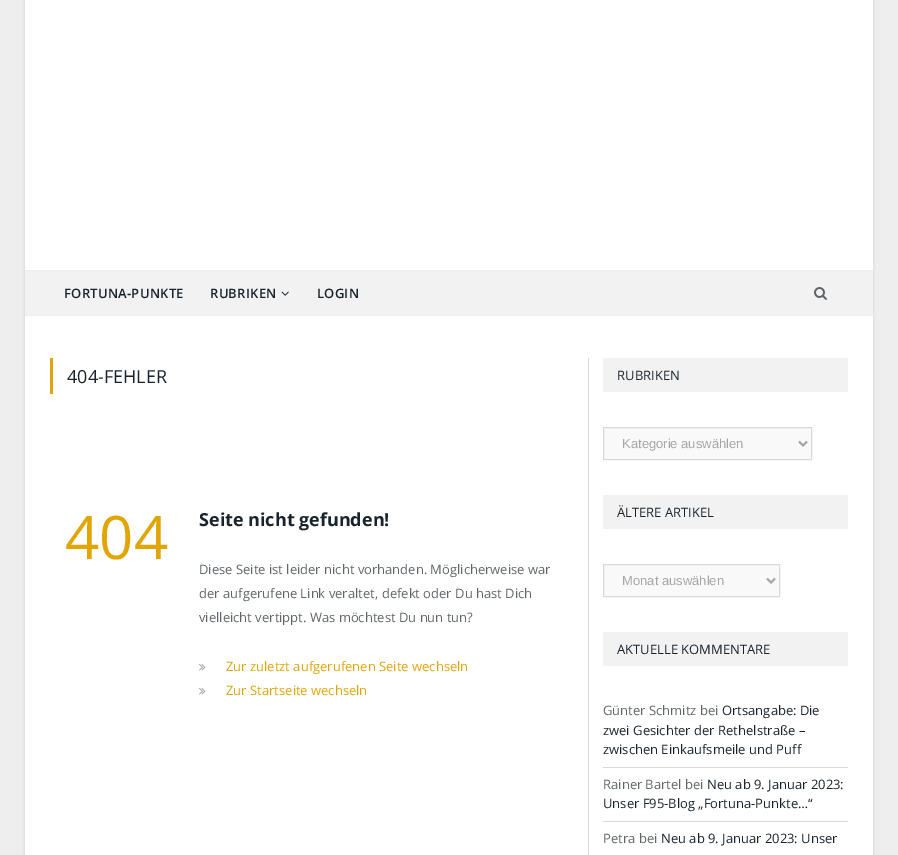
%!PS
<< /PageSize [898 855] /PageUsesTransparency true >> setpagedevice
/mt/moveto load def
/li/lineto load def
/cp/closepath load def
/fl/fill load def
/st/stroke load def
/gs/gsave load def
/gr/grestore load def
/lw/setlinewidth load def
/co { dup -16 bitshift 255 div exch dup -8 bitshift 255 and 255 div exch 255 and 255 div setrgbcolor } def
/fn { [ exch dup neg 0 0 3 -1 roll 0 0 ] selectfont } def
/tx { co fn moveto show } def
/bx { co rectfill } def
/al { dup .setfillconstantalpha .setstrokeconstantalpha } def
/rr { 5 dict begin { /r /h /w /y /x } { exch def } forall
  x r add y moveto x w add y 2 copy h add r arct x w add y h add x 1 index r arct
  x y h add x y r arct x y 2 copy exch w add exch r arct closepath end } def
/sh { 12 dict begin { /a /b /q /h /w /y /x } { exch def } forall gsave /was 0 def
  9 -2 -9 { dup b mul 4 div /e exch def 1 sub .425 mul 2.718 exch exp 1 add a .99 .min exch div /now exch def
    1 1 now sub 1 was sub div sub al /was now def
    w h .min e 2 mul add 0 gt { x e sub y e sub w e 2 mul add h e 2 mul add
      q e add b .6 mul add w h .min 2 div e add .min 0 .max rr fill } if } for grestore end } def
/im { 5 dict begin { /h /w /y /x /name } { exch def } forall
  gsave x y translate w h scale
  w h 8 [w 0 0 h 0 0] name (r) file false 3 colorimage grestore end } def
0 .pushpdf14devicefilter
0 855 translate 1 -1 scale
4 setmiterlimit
0 0 898 855 16#EEEEEE bx
16#000000 co
25 0 848 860 0 1.5 .12 sh
25 0 848 855 16#FFFFFF bx
25 271 848 44 16#F2F2F2 bx
25 270 848 1 16#EEEEEE bx
25 315 848 1 16#EEEEEE bx
(media/1.raw) 281 291 8 5 im
(media/2.raw) 814 287 13 13 im
50 358 3 36 16#E1A506 bx
(media/3.raw) 199 664 7 7 im
(media/3.raw) 199 688 7 7 im
588 358 1 497 16#D9D9D9 bx
603 358 245 34 16#F2F2F2 bx
16#F9F9F9 co
603.5 427.5 mt 811.5 427.5 li 811.5 459.5 li 603.5 459.5 li cp gs fl gr
16#D9D9D9 co
st
16#A6A6A6 co
2 lw
799 441.5 mt 803 445.5 li 807 441.5 li st
603 495 245 34 16#F2F2F2 bx
16#F9F9F9 co
603.5 564.5 mt 779.5 564.5 li 779.5 596.5 li 603.5 596.5 li cp gs fl gr
16#D9D9D9 co
1 lw
st
16#A6A6A6 co
2 lw
767 578.5 mt 771 582.5 li 775 578.5 li st
603 632 245 34 16#F2F2F2 bx
603 767 245 1 16#D9D9D9 bx
603 821 245 1 16#D9D9D9 bx
/OpenSans-SemiBold 13 fn
16#19232D co
64 298 mt .25 0 (FORTUNA-PUNKTE) ashow
210 298 mt .25 0 (RUBRIKEN) ashow
317 298 mt .25 0 (LOGIN) ashow
(404-FEHLER) 67 383 /OpenSans-Regular 18 16#19232D tx
(404) 65 559 /OpenSans-Regular 60 16#E1A506 tx
(Seite nicht gefunden!) 199 526 /OpenSans-Bold 18 16#19232D tx
(Diese Seite ist leider nicht vorhanden. Möglicherweise war) 199 574 /OpenSans-Regular 13 16#606569 tx
(der aufgerufene Link veraltet, defekt oder Du hast Dich) 199 598 /OpenSans-Regular 13 16#606569 tx
(vielleicht vertippt. Was möchtest Du nun tun?) 199 622 /OpenSans-Regular 13 16#606569 tx
(Zur zuletzt aufgerufenen Seite wechseln) 226 671 /OpenSans-Regular 13 16#E1A506 tx
(Zur Startseite wechseln) 226 695 /OpenSans-Regular 13 16#E1A506 tx
(RUBRIKEN) 617 380 /OpenSans-Regular 13 16#19232D tx
(Kategorie auswählen) 622 448 /LiberationSans-Regular 13 16#A6A6A6 tx
(ÄLTERE ARTIKEL) 617 517 /OpenSans-Regular 13 16#19232D tx
(Monat auswählen) 622 585 /LiberationSans-Regular 13 16#A6A6A6 tx
(AKTUELLE KOMMENTARE) 617 654 /OpenSans-Regular 13 16#19232D tx
(Günter Schmitz bei) 603 715 /OpenSans-Regular 13 16#606569 tx
(Ortsangabe: Die) 722 715 /OpenSans-Regular 13 16#19232D tx
(zwei Gesichter der Rethelstraße –) 603 735 /OpenSans-Regular 13 16#19232D tx
(zwischen Einkaufsmeile und Puff) 603 754 /OpenSans-Regular 13 16#19232D tx
(Rainer Bartel bei) 603 789 /OpenSans-Regular 13 16#606569 tx
(Neu ab 9. Januar 2023:) 707 789 /OpenSans-Regular 13 16#19232D tx
(Unser F95-Blog „Fortuna-Punkte…“) 603 808 /OpenSans-Regular 13 16#19232D tx
(Petra bei) 603 843 /OpenSans-Regular 13 16#606569 tx
(Neu ab 9. Januar 2023: Unser) 661 843 /OpenSans-Regular 13 16#19232D tx
.poppdf14devicefilter showpage
